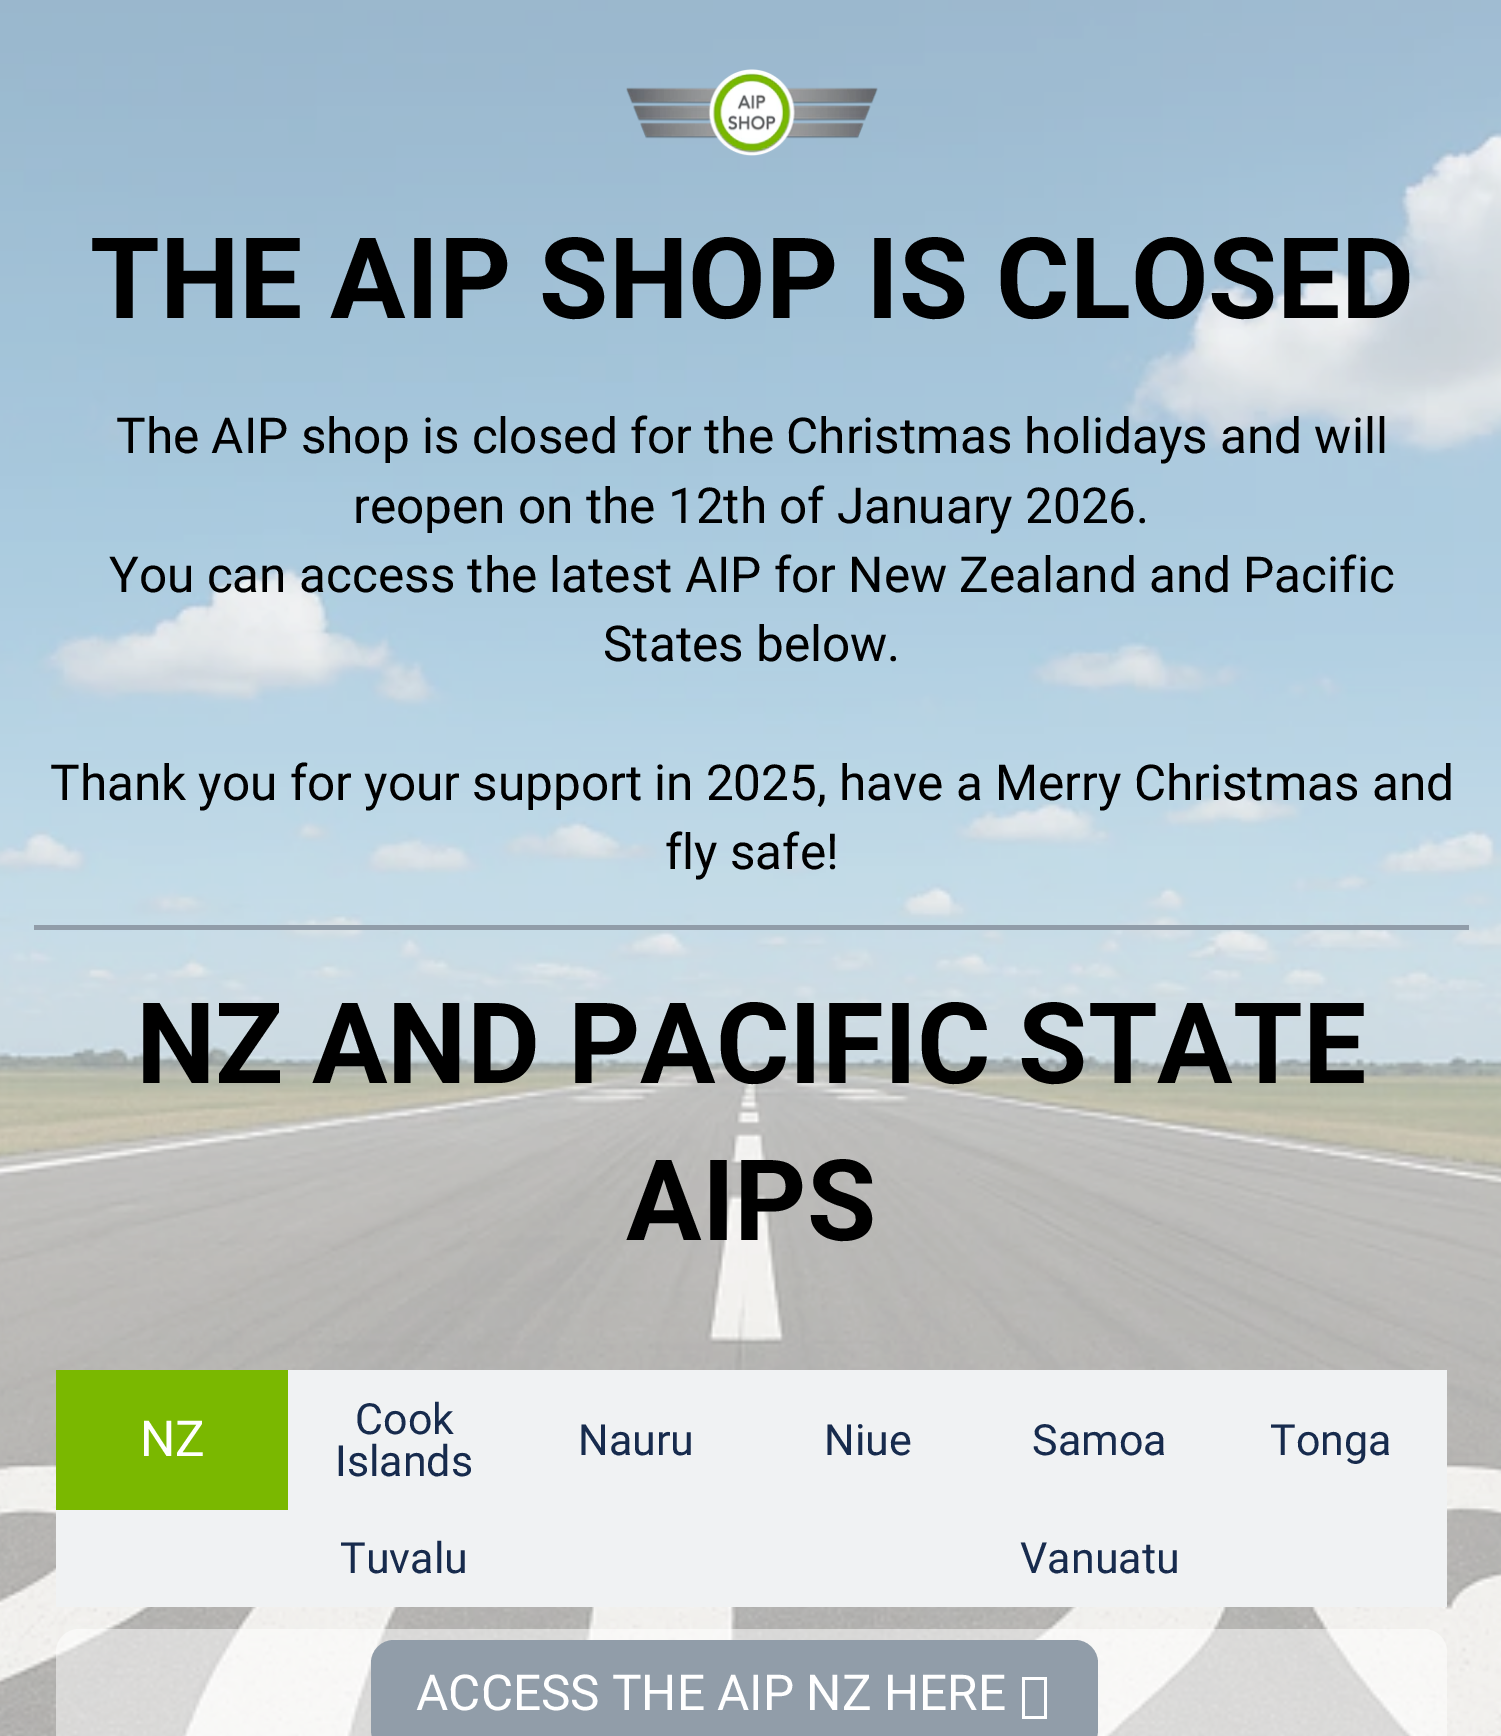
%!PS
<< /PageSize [1501 1736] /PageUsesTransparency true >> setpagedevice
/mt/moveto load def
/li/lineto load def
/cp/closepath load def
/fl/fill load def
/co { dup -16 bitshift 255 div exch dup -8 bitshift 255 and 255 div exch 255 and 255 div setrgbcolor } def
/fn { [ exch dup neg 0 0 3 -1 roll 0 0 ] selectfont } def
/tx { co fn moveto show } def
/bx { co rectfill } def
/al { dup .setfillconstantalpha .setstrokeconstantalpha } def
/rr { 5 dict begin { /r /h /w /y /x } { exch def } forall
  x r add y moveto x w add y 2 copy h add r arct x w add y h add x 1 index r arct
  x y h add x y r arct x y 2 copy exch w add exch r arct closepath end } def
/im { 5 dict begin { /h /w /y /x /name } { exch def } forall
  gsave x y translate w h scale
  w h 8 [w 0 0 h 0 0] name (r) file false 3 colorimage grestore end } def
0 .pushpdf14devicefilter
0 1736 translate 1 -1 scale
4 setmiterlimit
0 0 1501 1736 16#FFFFFF bx
(media/1.raw) 0 0 1501 1736 im
(media/2.raw) 626 69 252 87 im
34 925 1435 5 16#919DA9 bx
56 1370 232 140 16#7AB800 bx
288 1370 1159 140 16#F0F2F3 bx
56 1510 1391 97 16#F0F2F3 bx
0.5 al
16#FFFFFF co
56 1629 1391 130 23 rr fl
1 al
16#919DA9 co
371 1640 727 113 23 rr fl
16#FFFFFF co
1022 1719 mt 1022 1677 li 1047 1677 li 1047 1719 li cp 1025 1716 mt 1044 1716 li 1044 1680 li 1025 1680 li cp fl
(THE AIP SHOP IS CLOSED) 90 318 /Roboto-Bold 112.5 16#000000 tx
(The AIP shop is closed for the Christmas holidays and will) 116 453 /Roboto-Regular 49.5 16#000000 tx
(reopen on the 12th of January 2026.) 353 523 /Roboto-Regular 49.5 16#000000 tx
(You can access the latest AIP for New Zealand and Pacific) 109 592 /Roboto-Regular 49.5 16#000000 tx
(States below.) 603 661 /Roboto-Regular 49.5 16#000000 tx
(Thank you for your support in 2025, have a Merry Christmas and) 50 800 /Roboto-Regular 49.5 16#000000 tx
(fly safe!) 665 869 /Roboto-Regular 49.5 16#000000 tx
(NZ AND PACIFIC STATE) 136 1083 /Roboto-Bold 112.5 16#000000 tx
(AIPS) 626 1240 /Roboto-Bold 112.5 16#000000 tx
(NZ) 140 1456 /Roboto-Regular 49.5 16#FFFFFF tx
(Cook) 355 1434 /Roboto-Regular 43 16#172B4D tx
(Islands) 335 1476 /Roboto-Regular 43 16#172B4D tx
(Nauru) 578 1455 /Roboto-Regular 43 16#172B4D tx
(Niue) 824 1455 /Roboto-Regular 43 16#172B4D tx
(Samoa) 1032 1455 /Roboto-Regular 43 16#172B4D tx
(Tonga) 1270 1455 /Roboto-Regular 43 16#172B4D tx
(Tuvalu) 340 1573 /Roboto-Regular 43 16#172B4D tx
(Vanuatu) 1020 1573 /Roboto-Regular 43 16#172B4D tx
(ACCESS THE AIP NZ HERE) 416 1710 /Roboto-Regular 49.5 16#FFFFFF tx
.poppdf14devicefilter showpage
